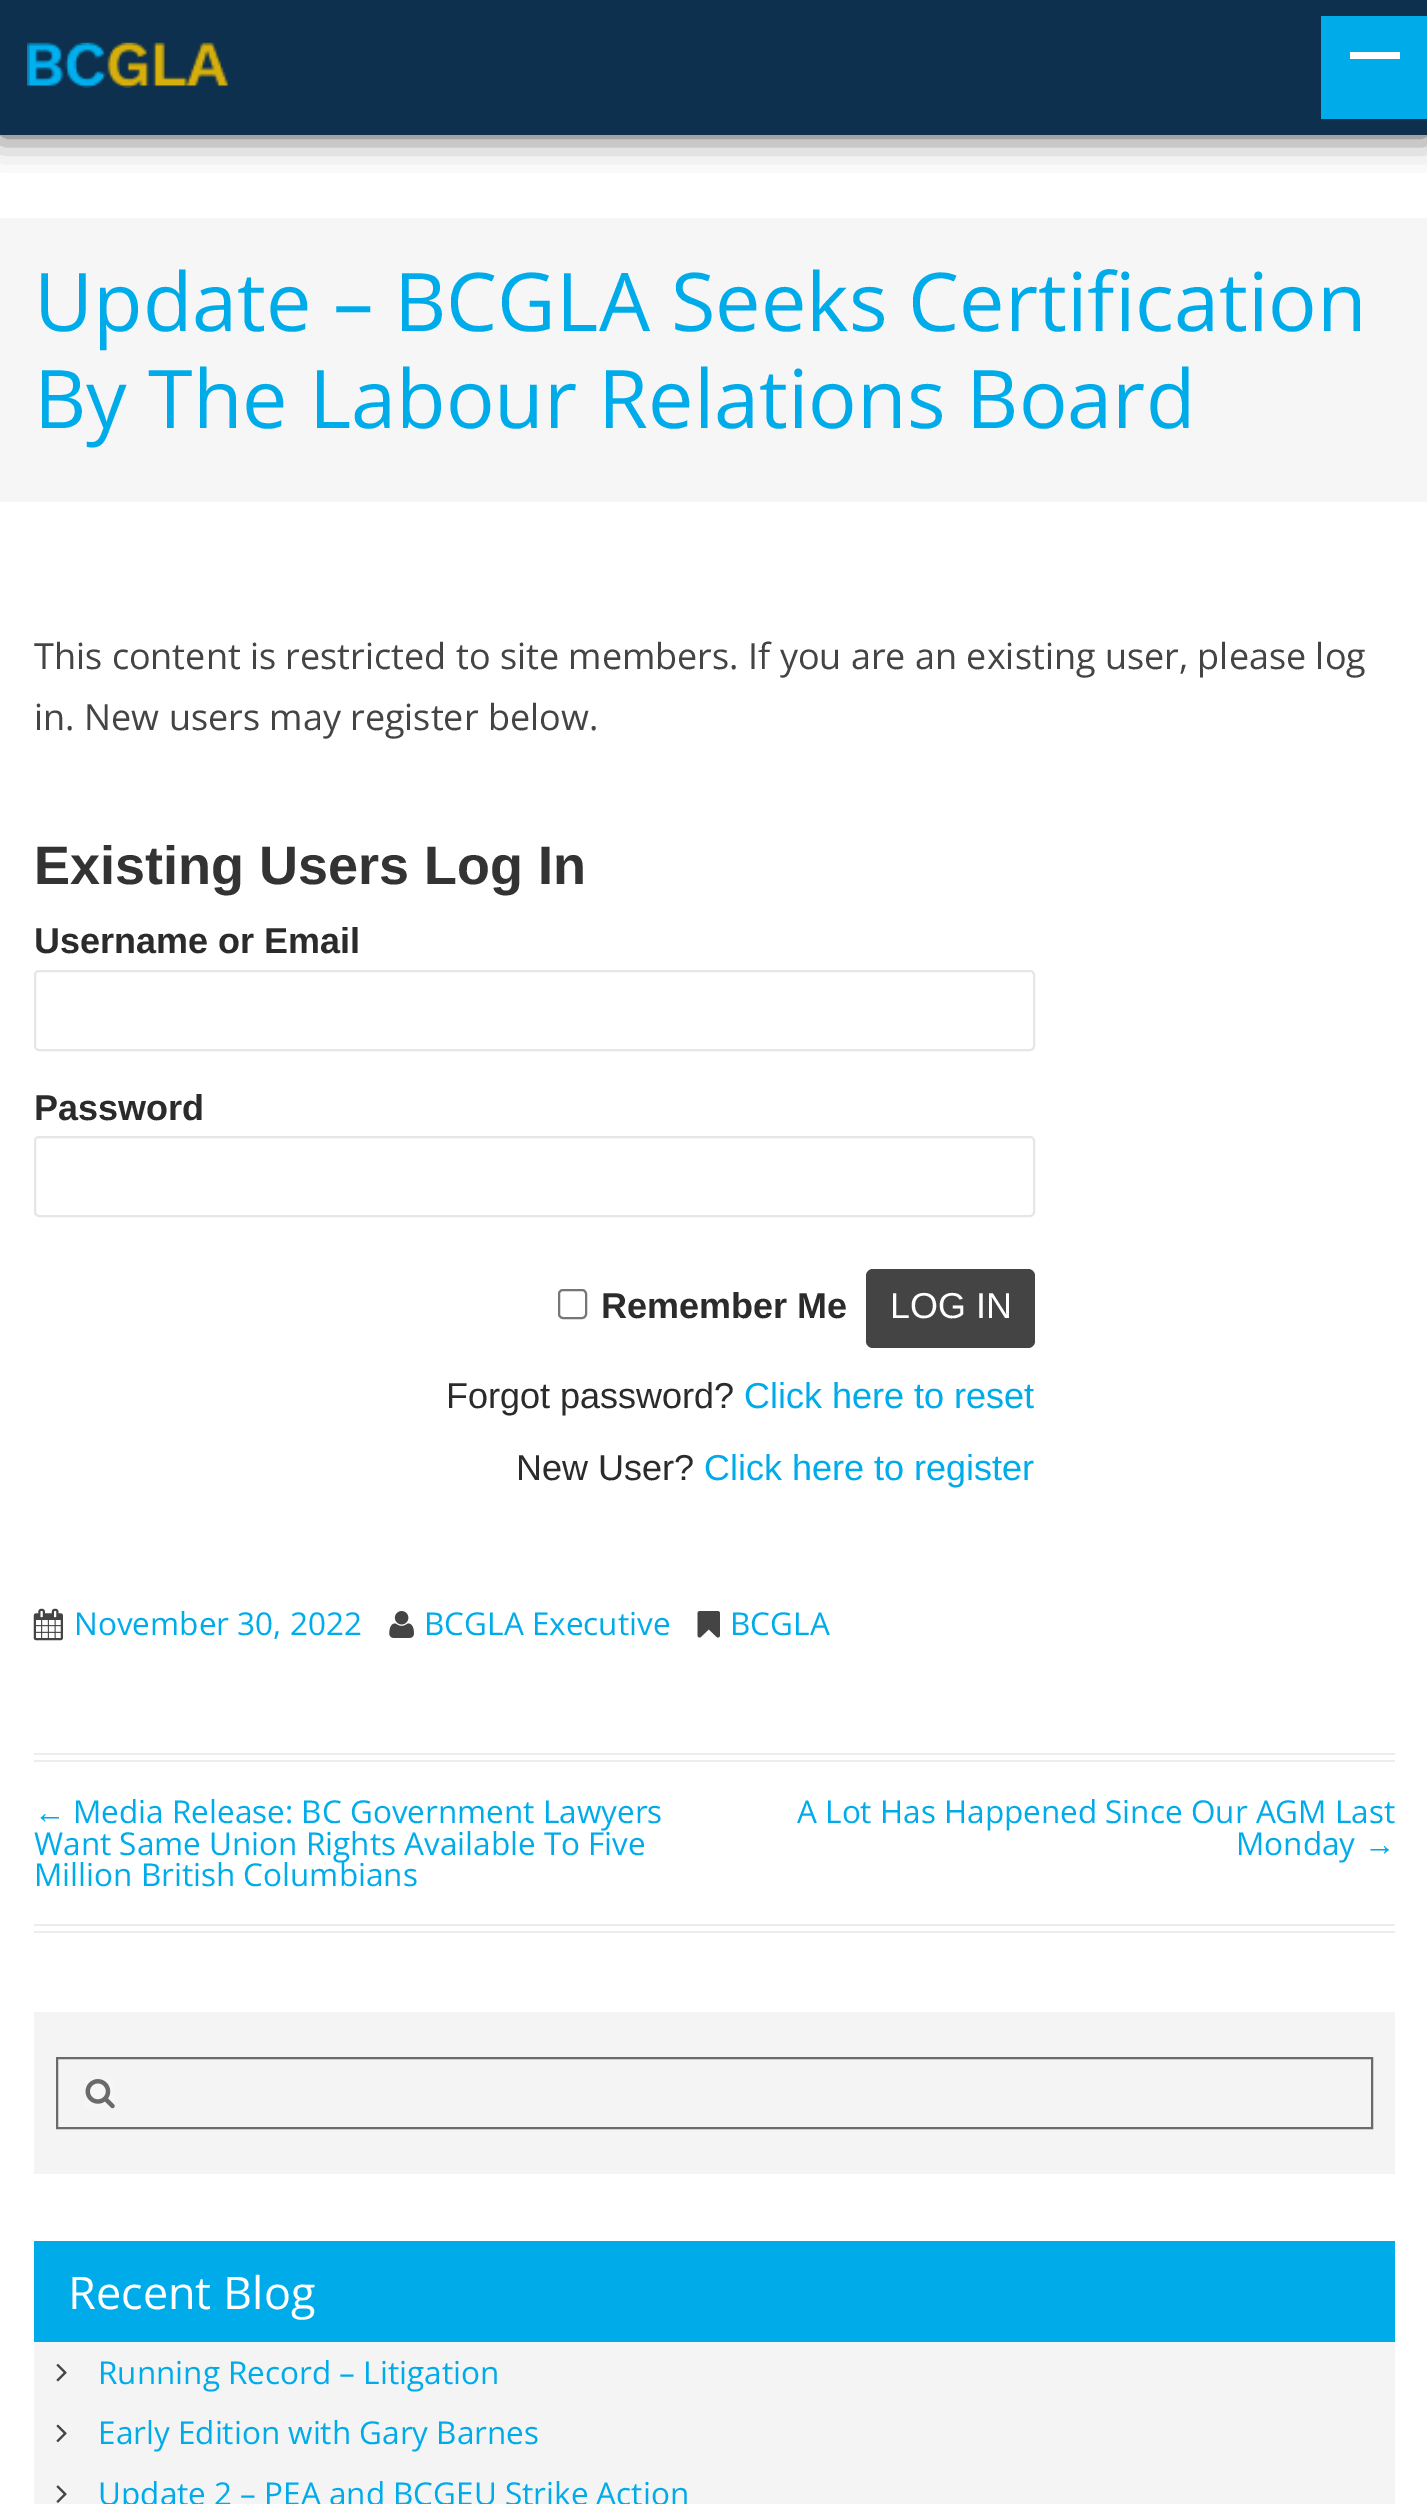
%!PS
<< /PageSize [1427 2504] /PageUsesTransparency true >> setpagedevice
/fl/fill load def
/st/stroke load def
/lw/setlinewidth load def
/co { dup -16 bitshift 255 div exch dup -8 bitshift 255 and 255 div exch 255 and 255 div setrgbcolor } def
/fn { [ exch dup neg 0 0 3 -1 roll 0 0 ] selectfont } def
/tx { co fn moveto show } def
/bx { co rectfill } def
/al { dup .setfillconstantalpha .setstrokeconstantalpha } def
/rr { 5 dict begin { /r /h /w /y /x } { exch def } forall
  x r add y moveto x w add y 2 copy h add r arct x w add y h add x 1 index r arct
  x y h add x y r arct x y 2 copy exch w add exch r arct closepath end } def
/sh { 12 dict begin { /a /b /q /h /w /y /x } { exch def } forall gsave /was 0 def
  9 -2 -9 { dup b mul 4 div /e exch def 1 sub .425 mul 2.718 exch exp 1 add a .99 .min exch div /now exch def
    1 1 now sub 1 was sub div sub al /was now def
    w h .min e 2 mul add 0 gt { x e sub y e sub w e 2 mul add h e 2 mul add
      q e add b .6 mul add w h .min 2 div e add .min 0 .max rr fill } if } for grestore end } def
/im { 5 dict begin { /h /w /y /x /name } { exch def } forall
  gsave x y translate w h scale
  w h 8 [w 0 0 h 0 0] name (r) file false 3 colorimage grestore end } def
0 .pushpdf14devicefilter
0 2504 translate 1 -1 scale
4 setmiterlimit
0 0 1427 2504 16#FFFFFF bx
16#444444 co
0 0 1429 135 0 17 1 sh
0 0 1427 135 16#0D304F bx
1321 16 106 103 16#00ABEA bx
1350 52 50 7 16#FFFFFF bx
(media/1.raw) 27 42 203 46 im
0 218 1427 284 16#F6F6F6 bx
16#E6E6E6 co
2 lw
35 971 999 79 4 rr st
35 1137 999 79 4 rr st
16#767676 co
559 1290 27 28 4 rr st
16#444444 co
866 1269 169 79 7 rr fl
(media/2.raw) 33 1608 30 33 im
(media/3.raw) 389 1611 25 27 im
(media/4.raw) 697 1611 23 27 im
34 1753 1361 2 16#EDEDED bx
34 1760 1361 2 16#EDEDED bx
34 1924 1361 2 16#EDEDED bx
34 1931 1361 2 16#EDEDED bx
34 2012 1361 162 16#F5F4F4 bx
16#6A6A6A co
57 2058 1315 70 rectstroke
(media/5.raw) 85 2079 30 30 im
34 2342 1361 162 16#F5F4F4 bx
34 2241 1361 101 16#00ABEA bx
(media/6.raw) 56 2363 11 19 im
(media/7.raw) 56 2424 11 19 im
(media/8.raw) 56 2485 11 18 im
(Update – BCGLA Seeks Certification) 34 331 /OpenSans-Regular 81 16#00ABEA tx
(By The Labour Relations Board) 34 428 /OpenSans-Regular 81 16#00ABEA tx
(This content is restricted to site members. If you are an existing user, please log) 34 669 /OpenSans-Regular 36 16#444444 tx
(in. New users may register below.) 34 730 /OpenSans-Regular 36 16#444444 tx
(Existing Users Log In) 34 884 /LiberationSans-Bold 54 16#333333 tx
(Username or Email) 34 953 /LiberationSans-Bold 36 16#2B2B2B tx
(Password) 34 1120 /LiberationSans-Bold 36 16#2B2B2B tx
(Remember Me) 601 1318 /LiberationSans-Bold 36 16#2B2B2B tx
(LOG IN) 890 1318 /LiberationSans-Regular 36 16#FFFFFF tx
(Forgot password?) 446 1408 /LiberationSans-Regular 36 16#2B2B2B tx
(Click here to reset) 744 1408 /LiberationSans-Regular 36 16#00ABEA tx
(New User?) 516 1480 /LiberationSans-Regular 36 16#2B2B2B tx
(Click here to register) 704 1480 /LiberationSans-Regular 36 16#00ABEA tx
(November 30, 2022) 74 1635 /OpenSans-Regular 31.5 16#00ABEA tx
(BCGLA Executive) 424 1635 /OpenSans-Regular 31.5 16#00ABEA tx
(BCGLA) 730 1635 /OpenSans-Regular 31.5 16#00ABEA tx
(←) 34 1823 /LiberationSans-Regular 31.5 16#00ABEA tx
(Media Release: BC Government Lawyers) 73 1823 /OpenSans-Regular 31.5 16#00ABEA tx
(Want Same Union Rights Available To Five) 34 1855 /OpenSans-Regular 31.5 16#00ABEA tx
(Million British Columbians) 34 1886 /OpenSans-Regular 31.5 16#00ABEA tx
(A Lot Has Happened Since Our AGM Last) 797 1823 /OpenSans-Regular 31.5 16#00ABEA tx
(Monday) 1236 1855 /OpenSans-Regular 31.5 16#00ABEA tx
(→) 1364 1855 /LiberationSans-Regular 31.5 16#00ABEA tx
(Recent Blog) 68 2309 /OpenSans-Regular 45 16#FFFFFF tx
(Running Record – Litigation) 98 2384 /OpenSans-Regular 31.5 16#00ABEA tx
(Early Edition with Gary Barnes) 98 2444 /OpenSans-Regular 31.5 16#00ABEA tx
(Update 2 – PEA and BCGEU Strike Action) 98 2505 /OpenSans-Regular 31.5 16#00ABEA tx
.poppdf14devicefilter showpage
